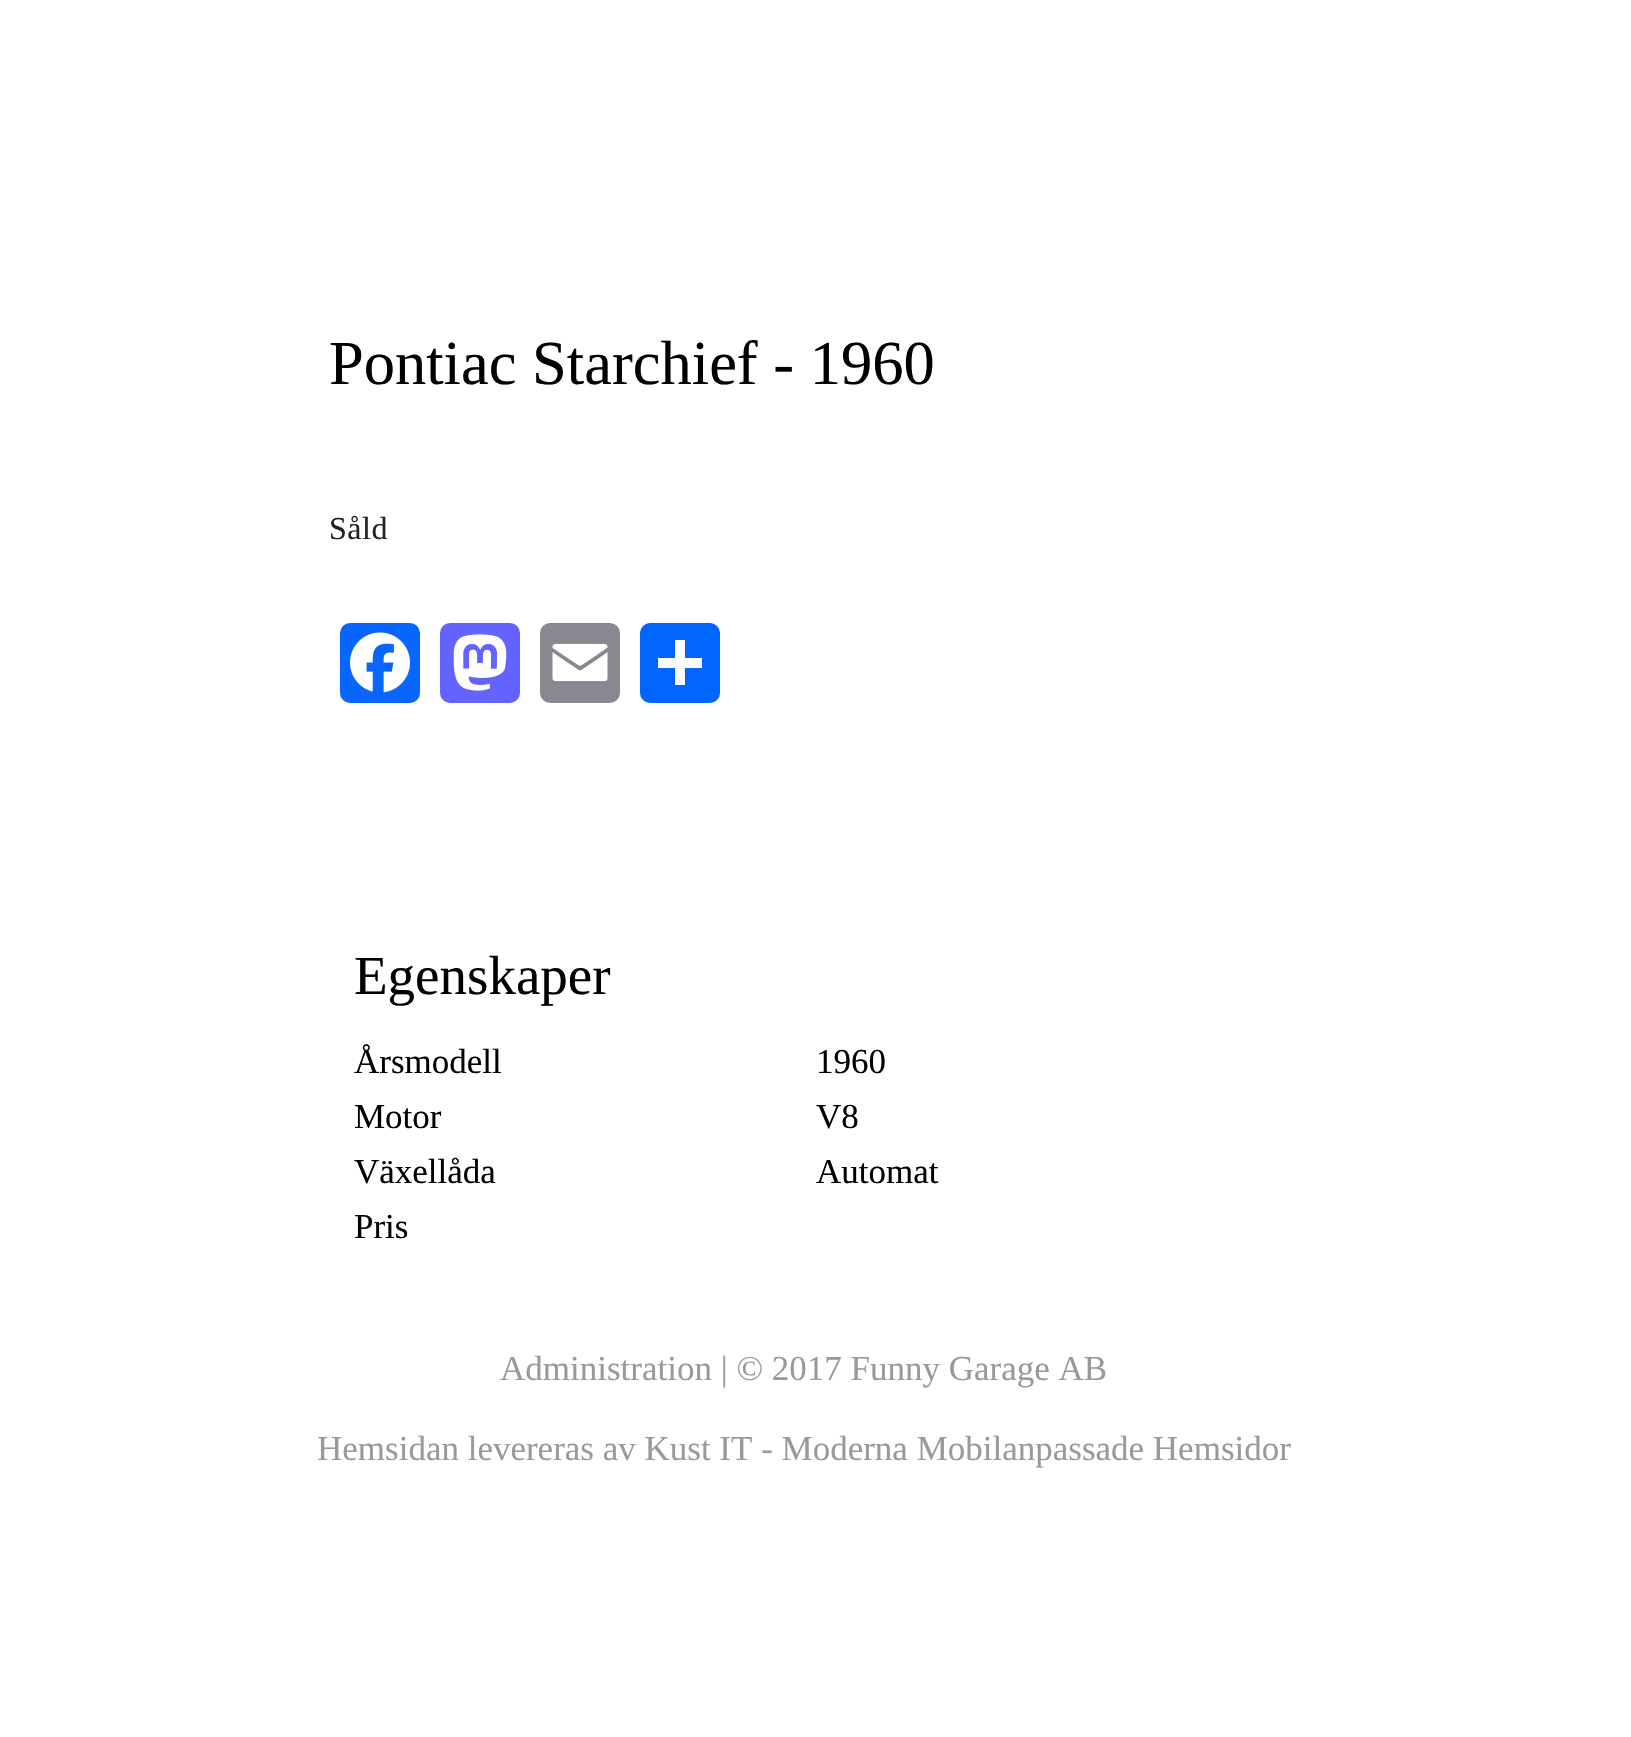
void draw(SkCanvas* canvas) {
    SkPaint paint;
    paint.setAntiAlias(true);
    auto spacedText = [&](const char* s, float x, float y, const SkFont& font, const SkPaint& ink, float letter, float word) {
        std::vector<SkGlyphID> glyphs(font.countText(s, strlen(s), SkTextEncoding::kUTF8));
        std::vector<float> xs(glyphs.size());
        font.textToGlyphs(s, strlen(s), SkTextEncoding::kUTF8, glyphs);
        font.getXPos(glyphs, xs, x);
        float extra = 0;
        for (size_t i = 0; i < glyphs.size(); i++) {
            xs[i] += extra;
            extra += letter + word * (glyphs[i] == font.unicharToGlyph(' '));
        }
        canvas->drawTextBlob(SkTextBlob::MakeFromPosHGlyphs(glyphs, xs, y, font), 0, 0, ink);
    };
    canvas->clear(0xFFFFFFFF);
    SkFont font1(fontMgr->matchFamilyStyle("Liberation Serif", SkFontStyle::Normal()), 62.5f);
    font1.setSubpixel(true);
    paint.setColor(0xFF000000);
    canvas->drawString("Pontiac Starchief - 1960", 329, 384, font1, paint);
    SkFont font2(fontMgr->matchFamilyStyle("Liberation Serif", SkFontStyle::Normal()), 32);
    font2.setSubpixel(true);
    paint.setColor(0xFF222222);
    spacedText("Såld", 329, 539, font2, paint, 0.5f, 0);
    paint.setColor(0xFF0866FF);
    canvas->drawRoundRect(SkRect::MakeXYWH(340, 623, 80, 80), 10, 10, paint);
    canvas->drawImageRect(SkImages::DeferredFromEncodedData(SkData::MakeFromFileName("img1.png")), SkRect::MakeXYWH(350, 632, 60, 61), SkSamplingOptions());
    paint.setColor(0xFF6364FF);
    canvas->drawRoundRect(SkRect::MakeXYWH(440, 623, 80, 80), 10, 10, paint);
    canvas->drawImageRect(SkImages::DeferredFromEncodedData(SkData::MakeFromFileName("img2.png")), SkRect::MakeXYWH(453, 634, 54, 57), SkSamplingOptions());
    paint.setColor(0xFF888990);
    canvas->drawRoundRect(SkRect::MakeXYWH(540, 623, 80, 80), 10, 10, paint);
    canvas->drawImageRect(SkImages::DeferredFromEncodedData(SkData::MakeFromFileName("img3.png")), SkRect::MakeXYWH(552, 643, 56, 39), SkSamplingOptions());
    paint.setColor(0xFF0166FF);
    canvas->drawRoundRect(SkRect::MakeXYWH(640, 623, 80, 80), 10, 10, paint);
    paint.setColor(0xFFFFFFFF);
    canvas->drawRect(SkRect::MakeXYWH(675, 640, 10, 45), paint);
    canvas->drawRect(SkRect::MakeXYWH(658, 658, 44, 10), paint);
    SkFont font3(fontMgr->matchFamilyStyle("Liberation Serif", SkFontStyle::Normal()), 55);
    font3.setSubpixel(true);
    paint.setColor(0xFF000000);
    canvas->drawString("Egenskaper", 354, 994, font3, paint);
    SkFont font4(fontMgr->matchFamilyStyle("Liberation Serif", SkFontStyle::Normal()), 35);
    font4.setSubpixel(true);
    canvas->drawString("Årsmodell", 354, 1073, font4, paint);
    canvas->drawString("1960", 816, 1073, font4, paint);
    canvas->drawString("Motor", 354, 1128, font4, paint);
    canvas->drawString("V8", 816, 1128, font4, paint);
    canvas->drawString("Växellåda", 354, 1183, font4, paint);
    canvas->drawString("Automat", 816, 1183, font4, paint);
    canvas->drawString("Pris", 354, 1238, font4, paint);
    paint.setColor(0xFF999999);
    canvas->drawString("Administration | © 2017 Funny Garage AB", 500, 1380, font4, paint);
    canvas->drawString("Hemsidan levereras av Kust IT - Moderna Mobilanpassade Hemsidor", 317, 1460, font4, paint);
}
